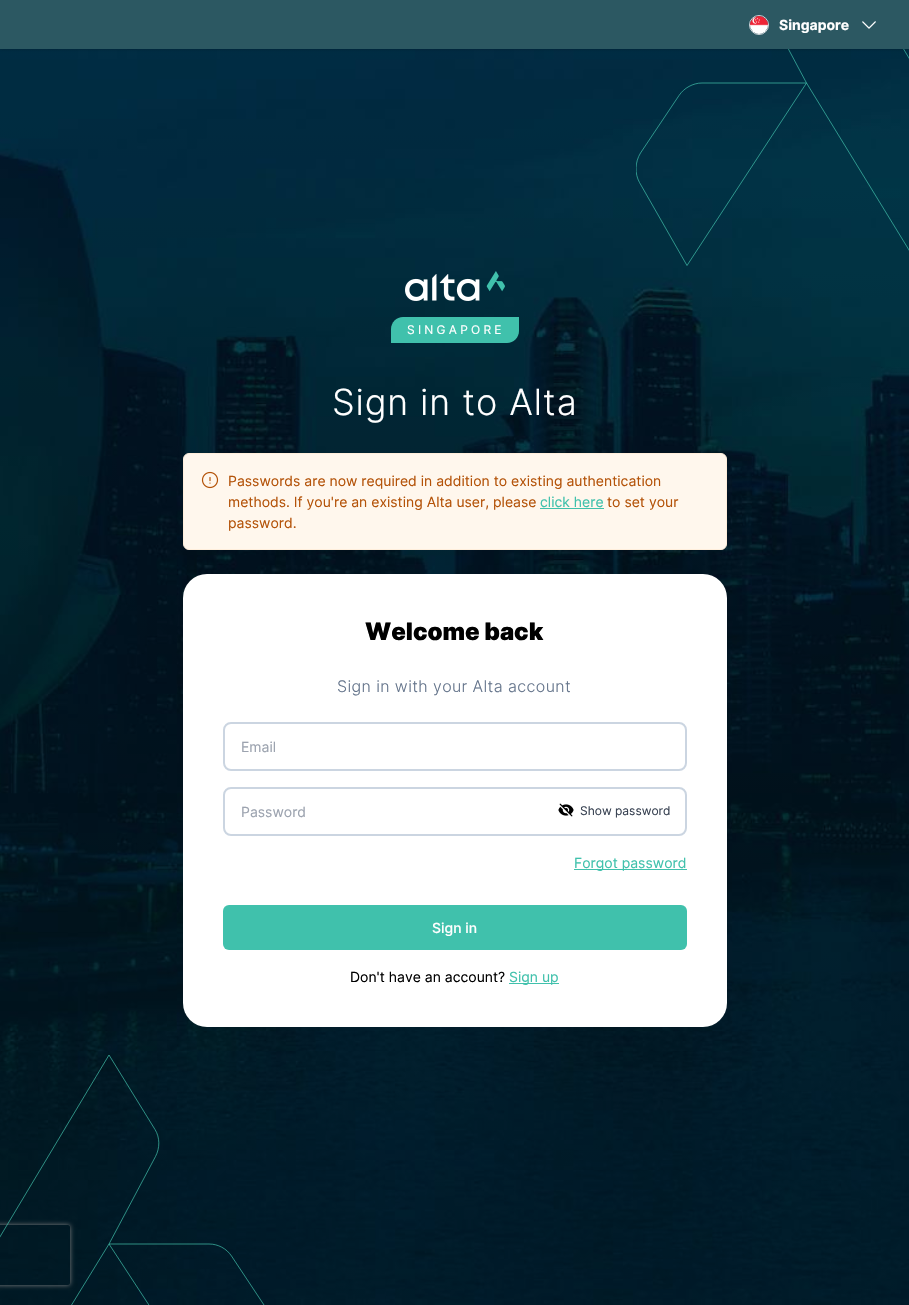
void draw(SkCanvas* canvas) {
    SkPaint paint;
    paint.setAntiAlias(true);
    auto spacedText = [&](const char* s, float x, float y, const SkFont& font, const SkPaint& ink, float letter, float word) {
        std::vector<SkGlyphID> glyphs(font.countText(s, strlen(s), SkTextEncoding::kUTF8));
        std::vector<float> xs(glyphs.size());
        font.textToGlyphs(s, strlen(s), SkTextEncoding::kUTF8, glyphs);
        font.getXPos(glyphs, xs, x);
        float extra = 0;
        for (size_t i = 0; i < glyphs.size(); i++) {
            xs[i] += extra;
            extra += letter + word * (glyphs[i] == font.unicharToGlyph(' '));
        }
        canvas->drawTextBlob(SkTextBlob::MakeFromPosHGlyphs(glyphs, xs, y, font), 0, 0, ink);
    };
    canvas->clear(0xFFFFFFFF);
    canvas->drawImageRect(SkImages::DeferredFromEncodedData(SkData::MakeFromFileName("img3.png")), SkRect::MakeXYWH(0, 49, 909, 1256), SkSamplingOptions());
    canvas->save();
    canvas->clipRect(SkRect::MakeXYWH(636, 0, 273, 266));
    paint.setStyle(SkPaint::kStroke_Style);
    paint.setStrokeWidth(0.7f);
    paint.setColor(0xFF40C1AC);
    canvas->drawPath(SkPathBuilder().moveTo(806.5f, 83).lineTo(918.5f, 265.5f).lineTo(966.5f, 181.5f).cubicTo(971.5f, 173, 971.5f, 162, 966, 153.5f).lineTo(806.5f, -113.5f).lineTo(758.5f, -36).cubicTo(753.5f, -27.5f, 753, -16.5f, 758, -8).close().moveTo(806.5f, 83).lineTo(687, 265.5f).lineTo(639.5f, 182.5f).cubicTo(634.5f, 173.5f, 635, 162, 640.5f, 153).lineTo(679, 95.5f).cubicTo(684, 88, 693, 83, 702, 83).close().detach(), paint);
    canvas->restore();
    paint.setStyle(SkPaint::kFill_Style);
    paint.setColor(0x1A000000);
    paint.setMaskFilter(SkMaskFilter::MakeBlur(kNormal_SkBlurStyle, 1));
    canvas->drawRect(SkRect::MakeXYWH(1, 2, 907, 47), paint);
    paint.setMaskFilter(nullptr);
    paint.setMaskFilter(SkMaskFilter::MakeBlur(kNormal_SkBlurStyle, 1.5f));
    canvas->drawRect(SkRect::MakeXYWH(0, 1, 909, 49), paint);
    paint.setMaskFilter(nullptr);
    paint.setColor(0xFF2C5862);
    canvas->drawRect(SkRect::MakeXYWH(0, 0, 909, 49), paint);
    paint.setStyle(SkPaint::kStroke_Style);
    paint.setStrokeWidth(1);
    paint.setColor(0xFFD1D5DB);
    canvas->drawCircle(759, 25, 9.5f, paint);
    canvas->drawImageRect(SkImages::DeferredFromEncodedData(SkData::MakeFromFileName("img1.png")), SkRect::MakeXYWH(750, 16, 18, 18), SkSamplingOptions());
    SkFont font1(fontMgr->matchFamilyStyle("Inter", SkFontStyle::Bold()), 14);
    font1.setSubpixel(true);
    paint.setStyle(SkPaint::kFill_Style);
    paint.setColor(0xFFFFFFFF);
    canvas->drawString("Singapore", 779, 30, font1, paint);
    canvas->drawImageRect(SkImages::DeferredFromEncodedData(SkData::MakeFromFileName("img2.png")), SkRect::MakeXYWH(862, 21, 14, 8), SkSamplingOptions());
    canvas->drawImageRect(SkImages::DeferredFromEncodedData(SkData::MakeFromFileName("img4.png")), SkRect::MakeXYWH(405, 271, 100, 30), SkSamplingOptions());
    paint.setColor(0xFF40C1AC);
    canvas->drawPath(SkPathBuilder().moveTo(403, 317).lineTo(519, 317).lineTo(519, 331).cubicTo(519, 337.5f, 513.5f, 343, 507, 343).lineTo(391, 343).lineTo(391, 329).cubicTo(391, 322.5f, 396.5f, 317, 403, 317).close().detach(), paint);
    SkFont font2(fontMgr->matchFamilyStyle("Inter", SkFontStyle::Normal()), 12);
    font2.setSubpixel(true);
    paint.setColor(0xFFFFFFFF);
    spacedText("SINGAPORE", 407, 334, font2, paint, 3.25f, 0);
    SkFont font3(fontMgr->matchFamilyStyle("Inter", SkFontStyle(300, SkFontStyle::kNormal_Width, SkFontStyle::kUpright_Slant)), 36);
    font3.setSubpixel(true);
    spacedText("Sign in to Alta", 332, 415, font3, paint, 0.9f, 0);
    paint.setColor(0xFFFFF7ED);
    canvas->drawRoundRect(SkRect::MakeXYWH(183.5f, 453.5f, 543, 96), 5.5f, 5.5f, paint);
    paint.setStyle(SkPaint::kStroke_Style);
    paint.setColor(0xFFFFEEDB);
    canvas->drawRoundRect(SkRect::MakeXYWH(183.5f, 453.5f, 543, 96), 5.5f, 5.5f, paint);
    canvas->drawImageRect(SkImages::DeferredFromEncodedData(SkData::MakeFromFileName("img5.png")), SkRect::MakeXYWH(201, 471, 18, 18), SkSamplingOptions());
    SkFont font4(fontMgr->matchFamilyStyle("Inter", SkFontStyle::Normal()), 14);
    font4.setSubpixel(true);
    paint.setStyle(SkPaint::kFill_Style);
    paint.setColor(0xFFB45309);
    canvas->drawString("Passwords are now required in addition to existing authentication", 228, 486, font4, paint);
    canvas->drawString("methods. If you're an existing Alta user, please", 228, 507, font4, paint);
    paint.setColor(0xFF40C1AC);
    canvas->drawString("click here", 540, 507, font4, paint);
    canvas->drawRect(SkRect::MakeXYWH(540, 508, 64, 1), paint);
    paint.setColor(0xFFB45309);
    canvas->drawString("to set your", 607, 507, font4, paint);
    canvas->drawString("password.", 228, 528, font4, paint);
    paint.setColor(0xFFFFFFFF);
    canvas->drawRoundRect(SkRect::MakeXYWH(183, 574, 544, 453), 24, 24, paint);
    SkFont font5(fontMgr->matchFamilyStyle("Inter", SkFontStyle(900, SkFontStyle::kNormal_Width, SkFontStyle::kUpright_Slant)), 24);
    font5.setSubpixel(true);
    paint.setColor(0xFF000000);
    canvas->drawString("Welcome back", 365, 640, font5, paint);
    SkFont font6(fontMgr->matchFamilyStyle("Inter", SkFontStyle(300, SkFontStyle::kNormal_Width, SkFontStyle::kUpright_Slant)), 16);
    font6.setSubpixel(true);
    paint.setColor(0xFF64748B);
    spacedText("Sign in with your Alta account", 337, 692, font6, paint, 0.4f, 0);
    paint.setStyle(SkPaint::kStroke_Style);
    paint.setStrokeWidth(2);
    paint.setColor(0xFFCBD5E1);
    canvas->drawRoundRect(SkRect::MakeXYWH(224, 723, 462, 47), 7, 7, paint);
    paint.setStyle(SkPaint::kFill_Style);
    paint.setColor(0xFF9CA3AF);
    canvas->drawString("Email", 241, 752, font4, paint);
    paint.setStyle(SkPaint::kStroke_Style);
    paint.setColor(0xFFCBD5E1);
    canvas->drawRoundRect(SkRect::MakeXYWH(224, 788, 462, 47), 7, 7, paint);
    paint.setStyle(SkPaint::kFill_Style);
    paint.setColor(0xFF9CA3AF);
    canvas->drawString("Password", 241, 817, font4, paint);
    canvas->drawImageRect(SkImages::DeferredFromEncodedData(SkData::MakeFromFileName("img6.png")), SkRect::MakeXYWH(558, 803, 16, 14), SkSamplingOptions());
    paint.setColor(0xFF374151);
    canvas->drawString("Show password", 580, 815, font2, paint);
    paint.setColor(0xFF40C1AC);
    canvas->drawRect(SkRect::MakeXYWH(574, 869, 113, 1), paint);
    canvas->drawString("Forgot password", 574, 868, font4, paint);
    canvas->drawRoundRect(SkRect::MakeXYWH(223, 905, 464, 45), 6, 6, paint);
    SkFont font7(fontMgr->matchFamilyStyle("Inter", SkFontStyle(500, SkFontStyle::kNormal_Width, SkFontStyle::kUpright_Slant)), 14);
    font7.setSubpixel(true);
    paint.setColor(0xFFFFFFFF);
    canvas->drawString("Sign in", 432, 933, font7, paint);
    paint.setColor(0xFF000000);
    canvas->drawString("Don't have an account?", 350, 982, font4, paint);
    paint.setColor(0xFF40C1AC);
    canvas->drawRect(SkRect::MakeXYWH(509, 983, 50, 1), paint);
    canvas->drawString("Sign up", 509, 982, font4, paint);
    canvas->save();
    canvas->clipPath(SkPathBuilder(SkPathFillType::kEvenOdd).moveTo(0, 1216).lineTo(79, 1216).lineTo(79, 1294).lineTo(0, 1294).close().moveTo(-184, 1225).lineTo(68, 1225).cubicTo(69, 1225, 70, 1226, 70, 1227).lineTo(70, 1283).cubicTo(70, 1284, 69, 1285, 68, 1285).lineTo(-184, 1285).cubicTo(-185, 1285, -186, 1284, -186, 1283).lineTo(-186, 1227).cubicTo(-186, 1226, -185, 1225, -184, 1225).close().detach(), true);
    paint.setColor(0xFF808080);
    paint.setMaskFilter(SkMaskFilter::MakeBlur(kNormal_SkBlurStyle, 2.5f));
    canvas->drawRoundRect(SkRect::MakeXYWH(-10, 1225, 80, 60), 2, 2, paint);
    paint.setMaskFilter(nullptr);
    canvas->restore();
    paint.setStyle(SkPaint::kStroke_Style);
    paint.setStrokeWidth(0.7f);
    paint.setColor(0xFF40C1AC);
    canvas->drawPath(SkPathBuilder().moveTo(109, 1244).lineTo(1.5f, 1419).lineTo(-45, 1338.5f).cubicTo(-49.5f, 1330, -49.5f, 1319.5f, -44.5f, 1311).lineTo(109, 1055).lineTo(155, 1129.5f).cubicTo(160, 1137.5f, 160, 1148, 155.5f, 1156.5f).close().moveTo(109, 1244).lineTo(223.5f, 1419).lineTo(269, 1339).cubicTo(274, 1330, 274, 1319.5f, 268, 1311).lineTo(231.5f, 1256).cubicTo(226.5f, 1248.5f, 218, 1244, 209, 1244).close().detach(), paint);
}
